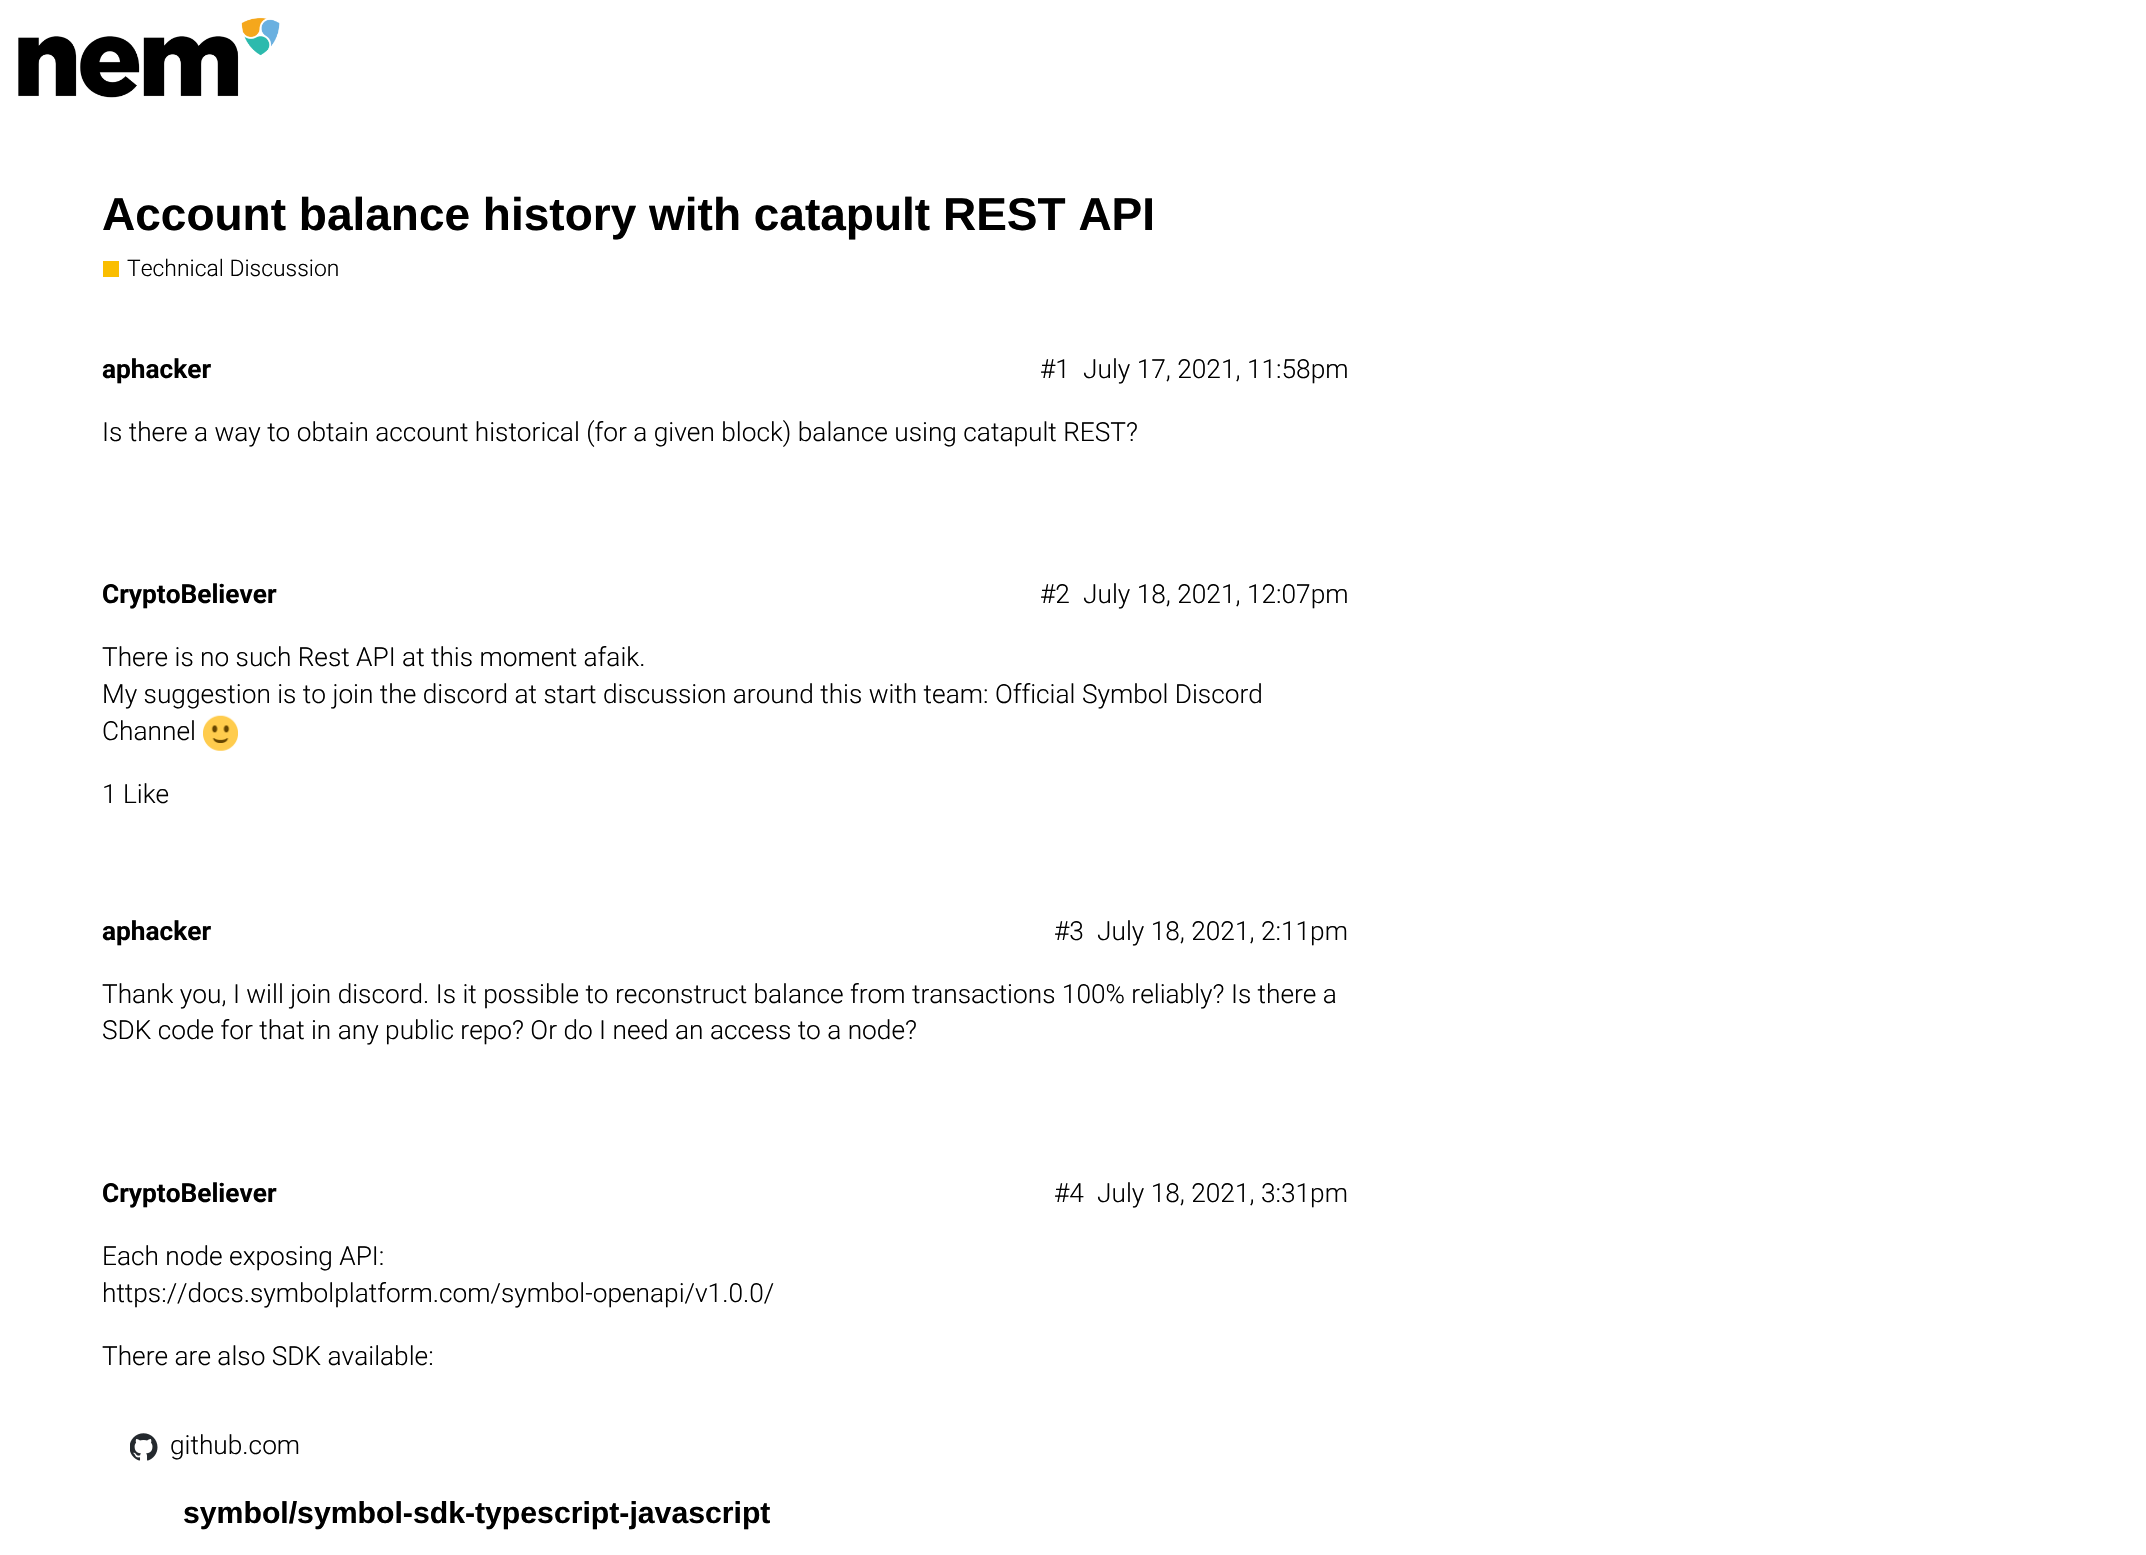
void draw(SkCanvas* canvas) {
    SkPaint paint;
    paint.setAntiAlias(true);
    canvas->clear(0xFFFFFFFF);
    canvas->drawImageRect(SkImages::DeferredFromEncodedData(SkData::MakeFromFileName("img1.png")), SkRect::MakeXYWH(18, 17, 262, 81), SkSamplingOptions());
    SkFont font1(fontMgr->matchFamilyStyle("Liberation Sans", SkFontStyle::Bold()), 46);
    font1.setSubpixel(true);
    paint.setColor(0xFF000000);
    canvas->drawString("Account balance history with catapult REST API", 102, 230, font1, paint);
    paint.setColor(0xFFFABE00);
    canvas->drawRect(SkRect::MakeXYWH(103, 261, 16, 16), paint);
    SkFont font2(fontMgr->matchFamilyStyle("Roboto", SkFontStyle(300, SkFontStyle::kNormal_Width, SkFontStyle::kUpright_Slant)), 22.9f);
    font2.setSubpixel(true);
    paint.setColor(0xFF000000);
    canvas->drawString("Technical Discussion", 127, 276, font2, paint);
    SkFont font3(fontMgr->matchFamilyStyle("Roboto", SkFontStyle::Bold()), 26.25f);
    font3.setSubpixel(true);
    canvas->drawString("aphacker", 102, 378, font3, paint);
    SkFont font4(fontMgr->matchFamilyStyle("Roboto", SkFontStyle(300, SkFontStyle::kNormal_Width, SkFontStyle::kUpright_Slant)), 26.25f);
    font4.setSubpixel(true);
    canvas->drawString("#1", 1040, 378, font4, paint);
    canvas->drawString("July 17, 2021, 11:58pm", 1083, 378, font4, paint);
    canvas->drawString("Is there a way to obtain account historical (for a given block) balance using catapult REST?", 102, 441, font4, paint);
    canvas->drawString("CryptoBeliever", 102, 603, font3, paint);
    canvas->drawString("#2", 1040, 603, font4, paint);
    canvas->drawString("July 18, 2021, 12:07pm", 1083, 603, font4, paint);
    canvas->drawString("There is no such Rest API at this moment afaik.", 102, 666, font4, paint);
    canvas->drawString("My suggestion is to join the discord at start discussion around this with team:", 102, 703, font4, paint);
    canvas->drawString("Official Symbol Discord", 995, 703, font4, paint);
    canvas->drawString("Channel", 102, 740, font4, paint);
    canvas->drawImageRect(SkImages::DeferredFromEncodedData(SkData::MakeFromFileName("img2.png")), SkRect::MakeXYWH(203, 715, 35, 36), SkSamplingOptions());
    canvas->drawString("1 Like", 102, 803, font4, paint);
    canvas->drawString("aphacker", 102, 940, font3, paint);
    canvas->drawString("#3", 1054, 940, font4, paint);
    canvas->drawString("July 18, 2021, 2:11pm", 1097, 940, font4, paint);
    canvas->drawString("Thank you, I will join discord. Is it possible to reconstruct balance from transactions 100% reliably? Is there a", 102, 1003, font4, paint);
    canvas->drawString("SDK code for that in any public repo? Or do I need an access to a node?", 102, 1039, font4, paint);
    canvas->drawString("CryptoBeliever", 102, 1202, font3, paint);
    canvas->drawString("#4", 1054, 1202, font4, paint);
    canvas->drawString("July 18, 2021, 3:31pm", 1097, 1202, font4, paint);
    canvas->drawString("Each node exposing API:", 102, 1265, font4, paint);
    canvas->drawString("https://docs.symbolplatform.com/symbol-openapi/v1.0.0/", 102, 1302, font4, paint);
    canvas->drawString("There are also SDK available:", 102, 1365, font4, paint);
    canvas->drawImageRect(SkImages::DeferredFromEncodedData(SkData::MakeFromFileName("img3.png")), SkRect::MakeXYWH(130, 1433, 28, 28), SkSamplingOptions());
    canvas->drawString("github.com", 170, 1454, font4, paint);
    SkFont font5(fontMgr->matchFamilyStyle("Liberation Sans", SkFontStyle::Bold()), 30.2f);
    font5.setSubpixel(true);
    canvas->drawString("symbol/symbol-sdk-typescript-javascript", 183, 1523, font5, paint);
}
